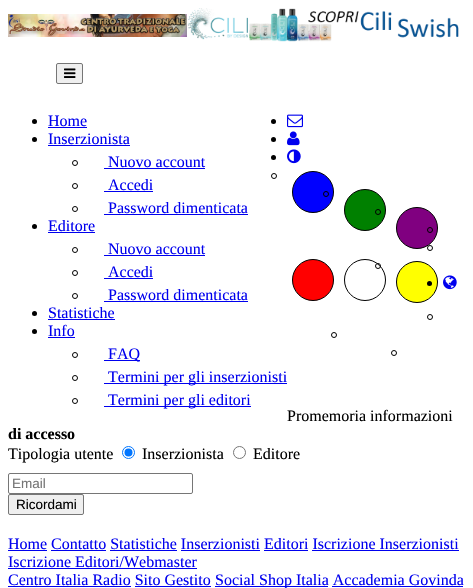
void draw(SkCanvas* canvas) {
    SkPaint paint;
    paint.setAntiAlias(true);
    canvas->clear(0xFFFFFFFF);
    canvas->drawImageRect(SkImages::DeferredFromEncodedData(SkData::MakeFromFileName("img1.png")), SkRect::MakeXYWH(8, 14, 179, 23), SkSamplingOptions());
    canvas->drawImageRect(SkImages::DeferredFromEncodedData(SkData::MakeFromFileName("img2.png")), SkRect::MakeXYWH(187, 8, 272, 34), SkSamplingOptions());
    paint.setColor(0xFFEFEFEF);
    canvas->drawRoundRect(SkRect::MakeXYWH(56.5f, 63.5f, 26, 20), 1.5f, 1.5f, paint);
    paint.setStyle(SkPaint::kStroke_Style);
    paint.setStrokeWidth(1);
    paint.setColor(0xFF767676);
    canvas->drawRoundRect(SkRect::MakeXYWH(56.5f, 63.5f, 26, 20), 1.5f, 1.5f, paint);
    canvas->drawImageRect(SkImages::DeferredFromEncodedData(SkData::MakeFromFileName("img3.png")), SkRect::MakeXYWH(64, 68, 12, 10), SkSamplingOptions());
    paint.setStyle(SkPaint::kFill_Style);
    paint.setColor(0xFF000000);
    canvas->drawCircle(34.5f, 121.5f, 2.5f, paint);
    SkFont font1(fontMgr->matchFamilyStyle("Liberation Serif", SkFontStyle::Normal()), 16);
    font1.setSubpixel(true);
    paint.setColor(0xFF0000EE);
    canvas->drawString("Home", 48, 126, font1, paint);
    canvas->drawRect(SkRect::MakeXYWH(48, 127, 39, 1), paint);
    paint.setColor(0xFF000000);
    canvas->drawCircle(34.5f, 139.5f, 2.5f, paint);
    paint.setColor(0xFF0000EE);
    canvas->drawString("Inserzionista", 48, 144, font1, paint);
    canvas->drawRect(SkRect::MakeXYWH(48, 145, 82, 1), paint);
    paint.setStyle(SkPaint::kStroke_Style);
    paint.setColor(0xFF000000);
    canvas->drawCircle(75, 163, 2.5f, paint);
    paint.setStyle(SkPaint::kFill_Style);
    paint.setColor(0xFF0000EE);
    canvas->drawString("Nuovo account", 108, 167, font1, paint);
    canvas->drawRect(SkRect::MakeXYWH(104, 168, 101, 1), paint);
    paint.setStyle(SkPaint::kStroke_Style);
    paint.setColor(0xFF000000);
    canvas->drawCircle(75, 186, 2.5f, paint);
    paint.setStyle(SkPaint::kFill_Style);
    paint.setColor(0xFF0000EE);
    canvas->drawString("Accedi", 108, 190, font1, paint);
    canvas->drawRect(SkRect::MakeXYWH(104, 191, 49, 1), paint);
    paint.setStyle(SkPaint::kStroke_Style);
    paint.setColor(0xFF000000);
    canvas->drawCircle(75, 209, 2.5f, paint);
    paint.setStyle(SkPaint::kFill_Style);
    paint.setColor(0xFF0000EE);
    canvas->drawString("Password dimenticata", 108, 213, font1, paint);
    canvas->drawRect(SkRect::MakeXYWH(104, 214, 144, 1), paint);
    paint.setColor(0xFF000000);
    canvas->drawCircle(34.5f, 226.5f, 2.5f, paint);
    paint.setColor(0xFF0000EE);
    canvas->drawString("Editore", 48, 231, font1, paint);
    canvas->drawRect(SkRect::MakeXYWH(48, 232, 47, 1), paint);
    paint.setStyle(SkPaint::kStroke_Style);
    paint.setColor(0xFF000000);
    canvas->drawCircle(75, 250, 2.5f, paint);
    paint.setStyle(SkPaint::kFill_Style);
    paint.setColor(0xFF0000EE);
    canvas->drawString("Nuovo account", 108, 254, font1, paint);
    canvas->drawRect(SkRect::MakeXYWH(104, 255, 101, 1), paint);
    paint.setStyle(SkPaint::kStroke_Style);
    paint.setColor(0xFF000000);
    canvas->drawCircle(75, 273, 2.5f, paint);
    paint.setStyle(SkPaint::kFill_Style);
    paint.setColor(0xFF0000EE);
    canvas->drawString("Accedi", 108, 277, font1, paint);
    canvas->drawRect(SkRect::MakeXYWH(104, 278, 49, 1), paint);
    paint.setStyle(SkPaint::kStroke_Style);
    paint.setColor(0xFF000000);
    canvas->drawCircle(75, 296, 2.5f, paint);
    paint.setStyle(SkPaint::kFill_Style);
    paint.setColor(0xFF0000EE);
    canvas->drawString("Password dimenticata", 108, 300, font1, paint);
    canvas->drawRect(SkRect::MakeXYWH(104, 301, 144, 1), paint);
    paint.setColor(0xFF000000);
    canvas->drawCircle(34.5f, 313.5f, 2.5f, paint);
    paint.setColor(0xFF0000EE);
    canvas->drawString("Statistiche", 48, 318, font1, paint);
    canvas->drawRect(SkRect::MakeXYWH(48, 319, 67, 1), paint);
    paint.setColor(0xFF000000);
    canvas->drawCircle(34.5f, 331.5f, 2.5f, paint);
    paint.setColor(0xFF0000EE);
    canvas->drawString("Info", 48, 336, font1, paint);
    canvas->drawRect(SkRect::MakeXYWH(48, 337, 27, 1), paint);
    paint.setStyle(SkPaint::kStroke_Style);
    paint.setColor(0xFF000000);
    canvas->drawCircle(75, 355, 2.5f, paint);
    paint.setStyle(SkPaint::kFill_Style);
    paint.setColor(0xFF0000EE);
    canvas->drawRect(SkRect::MakeXYWH(104, 360, 36, 1), paint);
    canvas->drawString("FAQ", 108, 359, font1, paint);
    paint.setStyle(SkPaint::kStroke_Style);
    paint.setColor(0xFF000000);
    canvas->drawCircle(75, 378, 2.5f, paint);
    paint.setStyle(SkPaint::kFill_Style);
    paint.setColor(0xFF0000EE);
    canvas->drawRect(SkRect::MakeXYWH(104, 383, 183, 1), paint);
    canvas->drawString("Termini per gli inserzionisti", 108, 382, font1, paint);
    paint.setStyle(SkPaint::kStroke_Style);
    paint.setColor(0xFF000000);
    canvas->drawCircle(75, 401, 2.5f, paint);
    paint.setStyle(SkPaint::kFill_Style);
    paint.setColor(0xFF0000EE);
    canvas->drawRect(SkRect::MakeXYWH(104, 406, 147, 1), paint);
    canvas->drawString("Termini per gli editori", 108, 405, font1, paint);
    paint.setColor(0xFF000000);
    canvas->drawCircle(273.5f, 121.5f, 2.5f, paint);
    canvas->drawImageRect(SkImages::DeferredFromEncodedData(SkData::MakeFromFileName("img4.png")), SkRect::MakeXYWH(287, 114, 16, 14), SkSamplingOptions());
    canvas->drawCircle(273.5f, 139.5f, 2.5f, paint);
    canvas->drawImageRect(SkImages::DeferredFromEncodedData(SkData::MakeFromFileName("img5.png")), SkRect::MakeXYWH(287, 131, 13, 15), SkSamplingOptions());
    canvas->drawCircle(273.5f, 157.5f, 2.5f, paint);
    canvas->drawImageRect(SkImages::DeferredFromEncodedData(SkData::MakeFromFileName("img6.png")), SkRect::MakeXYWH(287, 149, 14, 15), SkSamplingOptions());
    paint.setStyle(SkPaint::kStroke_Style);
    canvas->drawCircle(274, 176, 2.5f, paint);
    paint.setStyle(SkPaint::kFill_Style);
    paint.setColor(0xFF0000FF);
    canvas->drawCircle(313, 192, 20.5f, paint);
    paint.setStyle(SkPaint::kStroke_Style);
    paint.setColor(0xFF000000);
    canvas->drawCircle(313, 192, 20.5f, paint);
    canvas->drawCircle(326, 194, 2.5f, paint);
    paint.setStyle(SkPaint::kFill_Style);
    paint.setColor(0xFF008000);
    canvas->drawCircle(365, 210, 20.5f, paint);
    paint.setStyle(SkPaint::kStroke_Style);
    paint.setColor(0xFF000000);
    canvas->drawCircle(365, 210, 20.5f, paint);
    canvas->drawCircle(378, 212, 2.5f, paint);
    paint.setStyle(SkPaint::kFill_Style);
    paint.setColor(0xFF800080);
    canvas->drawCircle(417, 228, 20.5f, paint);
    paint.setStyle(SkPaint::kStroke_Style);
    paint.setColor(0xFF000000);
    canvas->drawCircle(417, 228, 20.5f, paint);
    canvas->drawCircle(430, 230, 2.5f, paint);
    paint.setStyle(SkPaint::kFill_Style);
    paint.setColor(0xFFFF0000);
    canvas->drawCircle(313, 280, 20.5f, paint);
    paint.setStyle(SkPaint::kStroke_Style);
    paint.setColor(0xFF000000);
    canvas->drawCircle(313, 280, 20.5f, paint);
    canvas->drawCircle(430, 248, 2.5f, paint);
    canvas->drawCircle(365, 280, 20.5f, paint);
    canvas->drawCircle(378, 266, 2.5f, paint);
    paint.setStyle(SkPaint::kFill_Style);
    paint.setColor(0xFFFFFF00);
    canvas->drawCircle(417, 282, 20.5f, paint);
    paint.setStyle(SkPaint::kStroke_Style);
    paint.setColor(0xFF000000);
    canvas->drawCircle(417, 282, 20.5f, paint);
    paint.setStyle(SkPaint::kFill_Style);
    canvas->drawCircle(429.5f, 283.5f, 2.5f, paint);
    canvas->drawImageRect(SkImages::DeferredFromEncodedData(SkData::MakeFromFileName("img7.png")), SkRect::MakeXYWH(443, 275, 14, 15), SkSamplingOptions());
    paint.setStyle(SkPaint::kStroke_Style);
    canvas->drawCircle(430, 317, 2.5f, paint);
    canvas->drawCircle(334, 335, 2.5f, paint);
    canvas->drawCircle(394, 353, 2.5f, paint);
    paint.setStyle(SkPaint::kFill_Style);
    canvas->drawString("Promemoria informazioni", 287, 421, font1, paint);
    SkFont font2(fontMgr->matchFamilyStyle("Liberation Serif", SkFontStyle::Bold()), 16);
    font2.setSubpixel(true);
    canvas->drawString("di accesso", 8, 439, font2, paint);
    canvas->drawString("Tipologia utente", 8, 459, font1, paint);
    paint.setStyle(SkPaint::kStroke_Style);
    paint.setColor(0xFF0075FF);
    canvas->drawCircle(128.5f, 452.5f, 6, paint);
    paint.setStyle(SkPaint::kFill_Style);
    canvas->drawCircle(128.5f, 452.5f, 4, paint);
    paint.setColor(0xFF000000);
    canvas->drawString("Inserzionista", 142, 459, font1, paint);
    paint.setStyle(SkPaint::kStroke_Style);
    paint.setColor(0xFF767676);
    canvas->drawCircle(239.5f, 452.5f, 6, paint);
    paint.setStyle(SkPaint::kFill_Style);
    paint.setColor(0xFF000000);
    canvas->drawString("Editore", 253, 459, font1, paint);
    paint.setStyle(SkPaint::kStroke_Style);
    paint.setColor(0xFF767676);
    canvas->drawRoundRect(SkRect::MakeXYWH(8.5f, 473.5f, 184, 20), 1.5f, 1.5f, paint);
    SkFont font3(fontMgr->matchFamilyStyle("Liberation Sans", SkFontStyle::Normal()), 13.5f);
    font3.setSubpixel(true);
    paint.setStyle(SkPaint::kFill_Style);
    paint.setColor(0xFF757575);
    canvas->drawString("Email", 12, 488, font3, paint);
    paint.setColor(0xFFEFEFEF);
    canvas->drawRoundRect(SkRect::MakeXYWH(8.5f, 494.5f, 75, 20), 1.5f, 1.5f, paint);
    paint.setStyle(SkPaint::kStroke_Style);
    paint.setColor(0xFF767676);
    canvas->drawRoundRect(SkRect::MakeXYWH(8.5f, 494.5f, 75, 20), 1.5f, 1.5f, paint);
    paint.setStyle(SkPaint::kFill_Style);
    paint.setColor(0xFF000000);
    canvas->drawString("Ricordami", 16, 509, font3, paint);
    paint.setColor(0xFF0000EE);
    canvas->drawString("Home Contatto Statistiche Inserzionisti Editori Iscrizione Inserzionisti", 8, 549, font1, paint);
    canvas->drawRect(SkRect::MakeXYWH(8, 550, 39, 1), paint);
    canvas->drawRect(SkRect::MakeXYWH(51, 550, 55, 1), paint);
    canvas->drawRect(SkRect::MakeXYWH(110, 550, 67, 1), paint);
    canvas->drawRect(SkRect::MakeXYWH(181, 550, 79, 1), paint);
    canvas->drawRect(SkRect::MakeXYWH(264, 550, 44, 1), paint);
    canvas->drawRect(SkRect::MakeXYWH(312, 550, 147, 1), paint);
    canvas->drawString("Iscrizione Editori/Webmaster", 8, 567, font1, paint);
    canvas->drawRect(SkRect::MakeXYWH(8, 568, 189, 1), paint);
    canvas->drawString("Centro Italia Radio Sito Gestito", 8, 585, font1, paint);
    canvas->drawRect(SkRect::MakeXYWH(8, 586, 123, 1), paint);
    canvas->drawRect(SkRect::MakeXYWH(215, 586, 113, 1), paint);
    canvas->drawString("Social Shop Italia Accademia Govinda", 215, 585, font1, paint);
    canvas->drawRect(SkRect::MakeXYWH(135, 586, 76, 1), paint);
    canvas->drawRect(SkRect::MakeXYWH(332, 586, 131, 1), paint);
}
